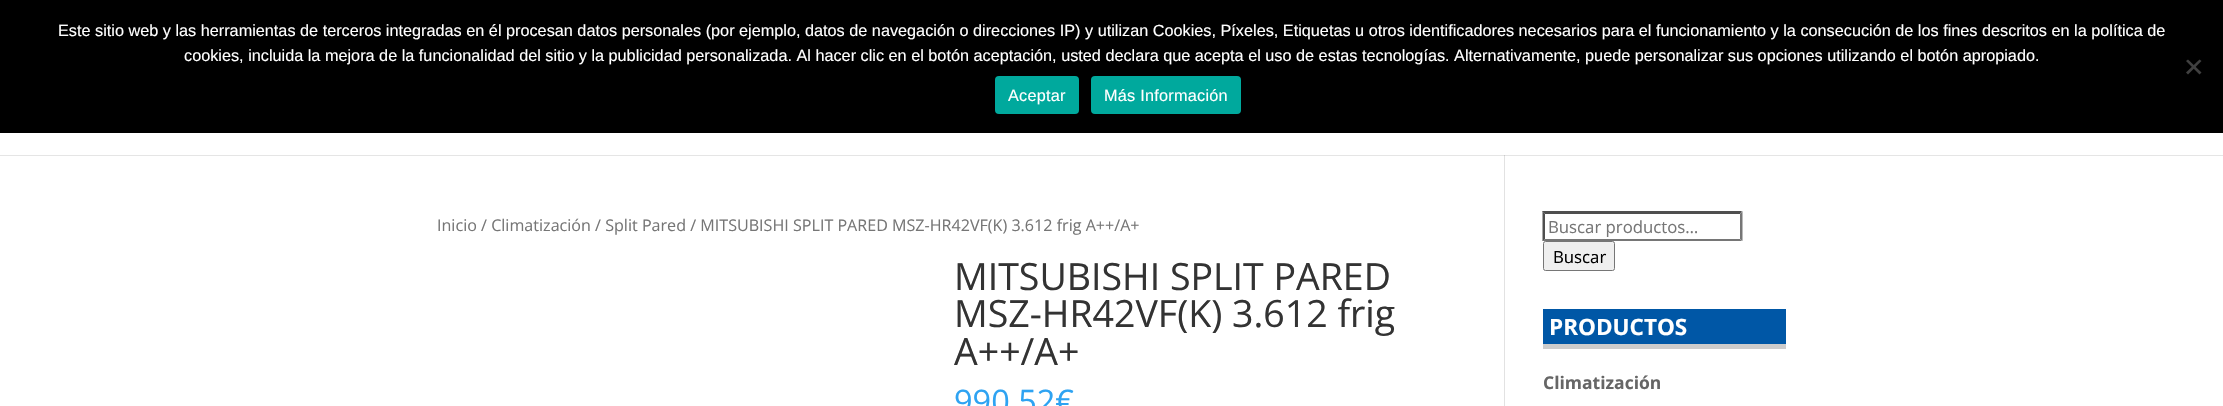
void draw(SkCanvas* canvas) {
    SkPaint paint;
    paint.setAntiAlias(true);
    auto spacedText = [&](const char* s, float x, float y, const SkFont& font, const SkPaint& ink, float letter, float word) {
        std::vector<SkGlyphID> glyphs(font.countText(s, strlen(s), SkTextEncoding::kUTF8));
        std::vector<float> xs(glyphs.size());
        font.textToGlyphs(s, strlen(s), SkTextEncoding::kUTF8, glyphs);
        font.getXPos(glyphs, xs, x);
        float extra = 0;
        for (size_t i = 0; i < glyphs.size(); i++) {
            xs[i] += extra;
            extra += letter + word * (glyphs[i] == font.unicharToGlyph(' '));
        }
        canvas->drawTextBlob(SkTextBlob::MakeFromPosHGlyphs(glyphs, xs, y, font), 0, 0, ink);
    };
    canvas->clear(0xFFFFFFFF);
    paint.setColor(0xFF000000);
    canvas->drawRect(SkRect::MakeXYWH(0, 0, 2223, 133), paint);
    SkFont font1(fontMgr->matchFamilyStyle("Liberation Sans", SkFontStyle::Normal()), 16.25f);
    font1.setSubpixel(true);
    paint.setColor(0xFFFFFFFF);
    canvas->drawString("Este sitio web y las herramientas de terceros integradas en él procesan datos personales (por ejemplo, datos de navegación o direcciones IP) y utilizan Cookies, Píxeles, Etiquetas u otros identificadores necesarios para el funcionamiento y la consecución de los fines descritos en la política de", 58, 36, font1, paint);
    canvas->drawString("cookies, incluida la mejora de la funcionalidad del sitio y la publicidad personalizada. Al hacer clic en el botón aceptación, usted declara que acepta el uso de estas tecnologías. Alternativamente, puede personalizar sus opciones utilizando el botón apropiado.", 184, 61, font1, paint);
    paint.setColor(0xFF404040);
    canvas->drawPath(SkPathBuilder().moveTo(2199.5f, 59.5f).lineTo(2201.5f, 61).lineTo(2188, 74.5f).lineTo(2186, 72.5f).close().detach(), paint);
    canvas->drawPath(SkPathBuilder().moveTo(2186, 61).lineTo(2188, 59.5f).lineTo(2201.5f, 72.5f).lineTo(2199.5f, 74.5f).close().detach(), paint);
    paint.setColor(0xFF00A99D);
    canvas->drawRoundRect(SkRect::MakeXYWH(995, 76, 84, 38), 4, 4, paint);
    paint.setColor(0xFFFFFFFF);
    spacedText("Aceptar", 1008, 101, font1, paint, 0.25f, 0);
    paint.setColor(0xFF00A99D);
    canvas->drawRoundRect(SkRect::MakeXYWH(1091, 76, 150, 38), 4, 4, paint);
    paint.setColor(0xFFFFFFFF);
    spacedText("Más Información", 1104, 101, font1, paint, 0.25f, 0);
    paint.setColor(0xFFE2E2E2);
    canvas->drawRect(SkRect::MakeXYWH(1504, 155, 1, 251), paint);
    paint.setColor(0x1A000000);
    canvas->drawPath(SkPathBuilder().moveTo(0, 155).lineTo(0, 156).lineTo(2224, 156).lineTo(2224, 39).lineTo(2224, 155).close().detach(), paint);
    SkFont font2(fontMgr->matchFamilyStyle("Open Sans", SkFontStyle::Normal()), 16.1f);
    font2.setSubpixel(true);
    paint.setColor(0xFF767676);
    canvas->drawString("Inicio / Climatización / Split Pared / MITSUBISHI SPLIT PARED MSZ-HR42VF(K) 3.612 frig A++/A+", 437, 231, font2, paint);
    SkFont font3(fontMgr->matchFamilyStyle("Open Sans", SkFontStyle::Normal()), 37.5f);
    font3.setSubpixel(true);
    paint.setColor(0xFF333333);
    canvas->drawString("MITSUBISHI SPLIT PARED", 954, 290, font3, paint);
    canvas->drawString("MSZ-HR42VF(K) 3.612 frig", 954, 327, font3, paint);
    canvas->drawString("A++/A+", 954, 365, font3, paint);
    SkFont font4(fontMgr->matchFamilyStyle("Open Sans", SkFontStyle::Normal()), 32.5f);
    font4.setSubpixel(true);
    paint.setColor(0xFF2EA3F2);
    canvas->drawString("990,52€", 954, 413, font4, paint);
    paint.setColor(0xFF4F4F4F);
    canvas->drawPath(SkPathBuilder().moveTo(1542, 211).lineTo(1742, 211).lineTo(1740, 214).lineTo(1545, 214).close().detach(), paint);
    paint.setColor(0xFF767676);
    canvas->drawPath(SkPathBuilder().moveTo(1742.5f, 211).lineTo(1742.5f, 241).lineTo(1740, 239).lineTo(1740, 214).close().detach(), paint);
    canvas->drawPath(SkPathBuilder().moveTo(1742, 241).lineTo(1542, 241).lineTo(1545, 239).lineTo(1740, 239).close().detach(), paint);
    paint.setColor(0xFF4F4F4F);
    canvas->drawPath(SkPathBuilder().moveTo(1542.5f, 241).lineTo(1542.5f, 211).lineTo(1545, 214).lineTo(1545, 239).close().detach(), paint);
    SkFont font5(fontMgr->matchFamilyStyle("Open Sans", SkFontStyle::Normal()), 16.75f);
    font5.setSubpixel(true);
    paint.setColor(0xFF767676);
    canvas->drawString("Buscar productos…", 1548, 233, font5, paint);
    paint.setColor(0xFFEFEFEF);
    canvas->drawRoundRect(SkRect::MakeXYWH(1543.5f, 241.5f, 71, 29), 2, 2, paint);
    paint.setStyle(SkPaint::kStroke_Style);
    paint.setStrokeWidth(1);
    paint.setColor(0xFF767676);
    canvas->drawRoundRect(SkRect::MakeXYWH(1543.5f, 241.5f, 71, 29), 2, 2, paint);
    paint.setStyle(SkPaint::kFill_Style);
    paint.setColor(0xFF000000);
    canvas->drawString("Buscar", 1553, 263, font5, paint);
    paint.setColor(0xFF0057A6);
    canvas->drawRect(SkRect::MakeXYWH(1543, 309, 243, 35), paint);
    paint.setColor(0xFFCCCCCC);
    canvas->drawRect(SkRect::MakeXYWH(1543, 344, 243, 5), paint);
    SkFont font6(fontMgr->matchFamilyStyle("Open Sans", SkFontStyle::Bold()), 22.5f);
    font6.setSubpixel(true);
    paint.setColor(0xFFFFFFFF);
    canvas->drawString("PRODUCTOS", 1549, 335, font6, paint);
    SkFont font7(fontMgr->matchFamilyStyle("Open Sans", SkFontStyle::Bold()), 17.5f);
    font7.setSubpixel(true);
    paint.setColor(0xFF666666);
    canvas->drawString("Climatización", 1543, 389, font7, paint);
}
